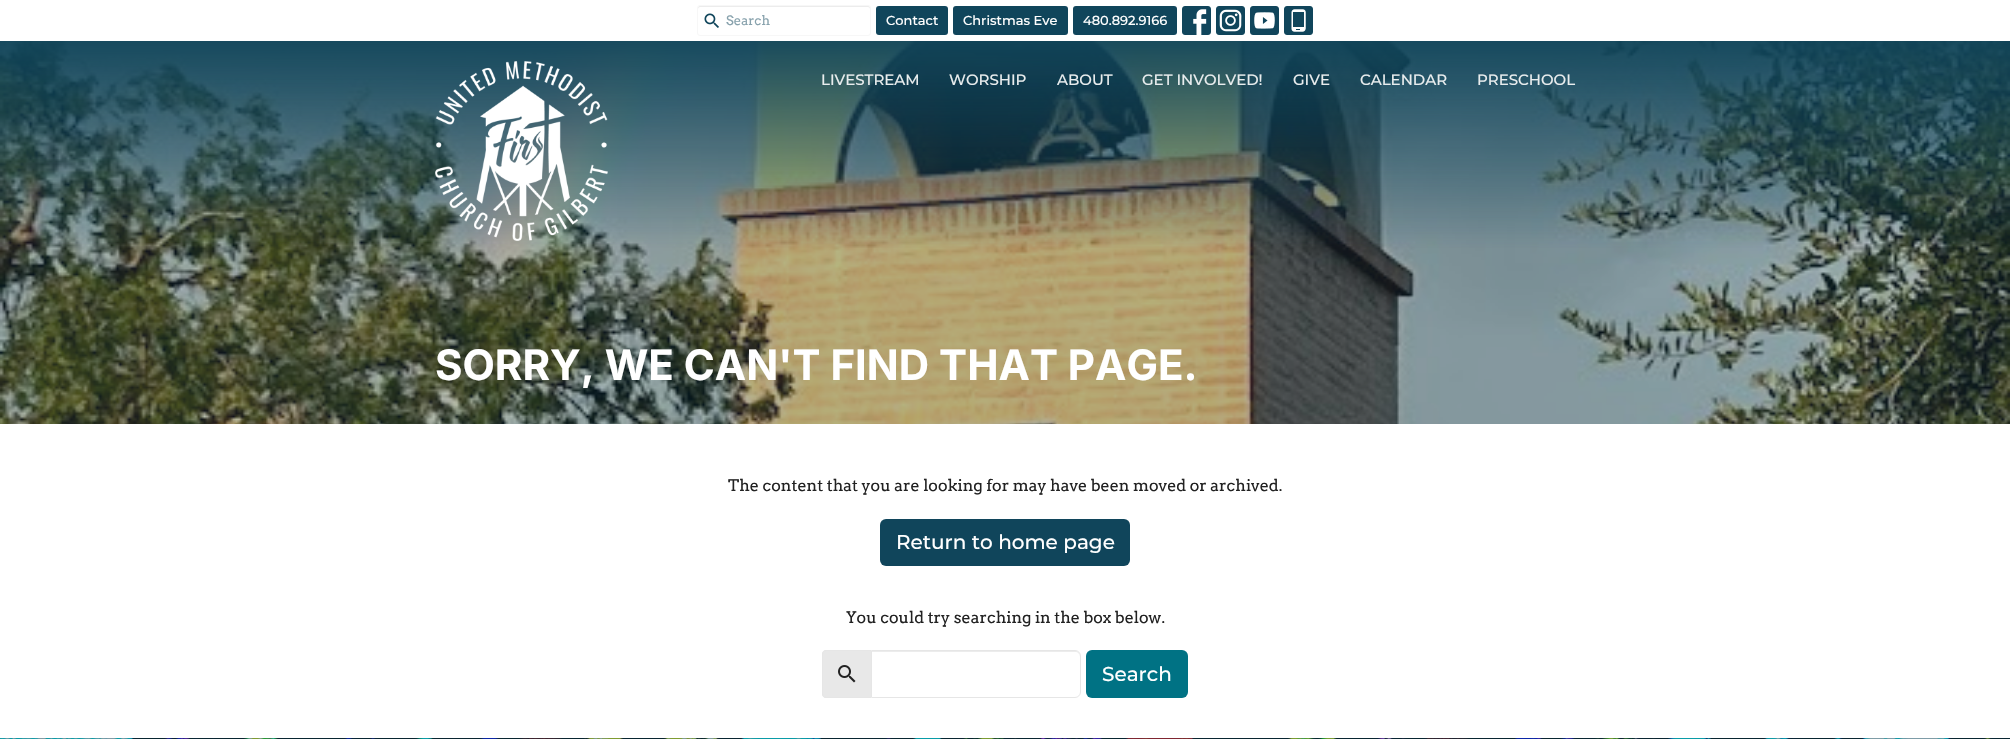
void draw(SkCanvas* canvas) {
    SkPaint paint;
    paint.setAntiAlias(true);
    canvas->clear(0xFFFFFFFF);
    paint.setColor(0xFFECECEC);
    canvas->drawPath(SkPathBuilder().moveTo(700, 7).lineTo(868, 7).cubicTo(869, 7, 870, 8, 870, 9).cubicTo(870, 8, 870, 6, 868, 6).lineTo(699, 6).cubicTo(698, 7, 698, 8, 698, 9).cubicTo(698, 8, 699, 7, 700, 7).close().detach(), paint);
    paint.setStyle(SkPaint::kStroke_Style);
    paint.setStrokeWidth(1);
    paint.setColor(0xFFF7F7F7);
    canvas->drawRoundRect(SkRect::MakeXYWH(697.5f, 5.5f, 173, 30), 2.5f, 2.5f, paint);
    canvas->drawImageRect(SkImages::DeferredFromEncodedData(SkData::MakeFromFileName("img1.png")), SkRect::MakeXYWH(704, 13, 15, 15), SkSamplingOptions());
    SkFont font1(fontMgr->matchFamilyStyle("Arvo", SkFontStyle::Normal()), 13);
    font1.setSubpixel(true);
    paint.setStyle(SkPaint::kFill_Style);
    paint.setColor(0xFF88A2AD);
    canvas->drawString("Search", 726, 25, font1, paint);
    paint.setColor(0xFF10455B);
    canvas->drawRoundRect(SkRect::MakeXYWH(876, 6, 72, 29), 3, 3, paint);
    SkFont font2(fontMgr->matchFamilyStyle("Montserrat", SkFontStyle(500, SkFontStyle::kNormal_Width, SkFontStyle::kUpright_Slant)), 13);
    font2.setSubpixel(true);
    paint.setColor(0xFFFFFFFF);
    canvas->drawString("Contact", 886, 25, font2, paint);
    paint.setColor(0xFF10455B);
    canvas->drawRoundRect(SkRect::MakeXYWH(953, 6, 115, 29), 3, 3, paint);
    paint.setColor(0xFFFFFFFF);
    canvas->drawString("Christmas Eve", 963, 25, font2, paint);
    paint.setColor(0xFF10455B);
    canvas->drawRoundRect(SkRect::MakeXYWH(1073, 6, 104, 29), 3, 3, paint);
    paint.setColor(0xFFFFFFFF);
    canvas->drawString("480.892.9166", 1083, 25, font2, paint);
    canvas->drawImageRect(SkImages::DeferredFromEncodedData(SkData::MakeFromFileName("img2.png")), SkRect::MakeXYWH(1182, 6, 29, 29), SkSamplingOptions());
    canvas->drawImageRect(SkImages::DeferredFromEncodedData(SkData::MakeFromFileName("img3.png")), SkRect::MakeXYWH(1216, 6, 29, 29), SkSamplingOptions());
    canvas->drawImageRect(SkImages::DeferredFromEncodedData(SkData::MakeFromFileName("img4.png")), SkRect::MakeXYWH(1250, 6, 29, 29), SkSamplingOptions());
    canvas->drawImageRect(SkImages::DeferredFromEncodedData(SkData::MakeFromFileName("img5.png")), SkRect::MakeXYWH(1284, 6, 29, 29), SkSamplingOptions());
    canvas->drawImageRect(SkImages::DeferredFromEncodedData(SkData::MakeFromFileName("img7.png")), SkRect::MakeXYWH(0, 41, 2010, 383), SkSamplingOptions());
    canvas->drawImageRect(SkImages::DeferredFromEncodedData(SkData::MakeFromFileName("img6.png")), SkRect::MakeXYWH(435, 61, 173, 180), SkSamplingOptions());
    SkFont font3(fontMgr->matchFamilyStyle("Montserrat", SkFontStyle(500, SkFontStyle::kNormal_Width, SkFontStyle::kUpright_Slant)), 15);
    font3.setSubpixel(true);
    paint.setColor(0xFFE9EDEE);
    canvas->drawString("LIVESTREAM", 821, 85, font3, paint);
    canvas->drawString("WORSHIP", 949, 85, font3, paint);
    canvas->drawString("ABOUT", 1057, 85, font3, paint);
    canvas->drawString("GET INVOLVED!", 1142, 85, font3, paint);
    canvas->drawString("GIVE", 1293, 85, font3, paint);
    canvas->drawString("CALENDAR", 1360, 85, font3, paint);
    canvas->drawString("PRESCHOOL", 1477, 85, font3, paint);
    SkFont font4(fontMgr->matchFamilyStyle("Inter", SkFontStyle::Bold()), 42);
    font4.setSubpixel(true);
    paint.setColor(0xFFFFFFFF);
    canvas->drawString("SORRY, WE CAN'T FIND THAT PAGE.", 435, 380, font4, paint);
    SkFont font5(fontMgr->matchFamilyStyle("Arvo", SkFontStyle::Normal()), 16);
    font5.setSubpixel(true);
    paint.setColor(0xFF222222);
    canvas->drawString("The content that you are looking for may have been moved or archived.", 728, 491, font5, paint);
    paint.setColor(0xFF10455B);
    canvas->drawRoundRect(SkRect::MakeXYWH(880, 519, 250, 47), 6, 6, paint);
    SkFont font6(fontMgr->matchFamilyStyle("Montserrat", SkFontStyle(500, SkFontStyle::kNormal_Width, SkFontStyle::kUpright_Slant)), 20);
    font6.setSubpixel(true);
    paint.setColor(0xFFFFFFFF);
    canvas->drawString("Return to home page", 896, 549, font6, paint);
    paint.setColor(0xFF222222);
    canvas->drawString("You could try searching in the box below.", 846, 623, font5, paint);
    paint.setColor(0xFFE8E8E8);
    canvas->drawPath(SkPathBuilder().moveTo(826, 650).lineTo(871, 650).lineTo(871, 698).lineTo(826, 698).cubicTo(824, 698, 822, 696, 822, 694).lineTo(822, 654).cubicTo(822, 652, 824, 650, 826, 650).close().detach(), paint);
    paint.setColor(0xFFE6E6E6);
    canvas->drawPath(SkPathBuilder(SkPathFillType::kEvenOdd).moveTo(826, 650).lineTo(871, 650).lineTo(871, 698).lineTo(826, 698).cubicTo(824, 698, 822, 696, 822, 694).lineTo(822, 654).cubicTo(822, 652, 824, 650, 826, 650).close().moveTo(826, 651).lineTo(871, 651).lineTo(871, 697).lineTo(826, 697).cubicTo(824, 697, 823, 696, 823, 694).lineTo(823, 654).cubicTo(823, 652, 824, 651, 826, 651).close().detach(), paint);
    canvas->drawImageRect(SkImages::DeferredFromEncodedData(SkData::MakeFromFileName("img8.png")), SkRect::MakeXYWH(838, 665, 18, 18), SkSamplingOptions());
    paint.setColor(0xFFECECEC);
    canvas->drawPath(SkPathBuilder().moveTo(872, 652).lineTo(1075, 652).cubicTo(1078, 652, 1080, 654, 1080, 657).cubicTo(1080, 654, 1079, 652, 1076, 651).lineTo(872, 651).close().detach(), paint);
    paint.setStyle(SkPaint::kStroke_Style);
    paint.setColor(0xFFE6E6E6);
    canvas->drawPath(SkPathBuilder().moveTo(871.5f, 650.5f).lineTo(1075, 650.5f).cubicTo(1078, 650.5f, 1080.5f, 653, 1080.5f, 656).lineTo(1080.5f, 692).cubicTo(1080.5f, 695, 1078, 697.5f, 1075, 697.5f).lineTo(871.5f, 697.5f).close().detach(), paint);
    paint.setStyle(SkPaint::kFill_Style);
    paint.setColor(0xFF007284);
    canvas->drawRoundRect(SkRect::MakeXYWH(1086, 650, 102, 48), 6, 6, paint);
    paint.setColor(0xFFFFFFFF);
    canvas->drawString("Search", 1102, 681, font6, paint);
    canvas->drawImageRect(SkImages::DeferredFromEncodedData(SkData::MakeFromFileName("img9.png")), SkRect::MakeXYWH(0, 738, 2010, 1), SkSamplingOptions());
}
